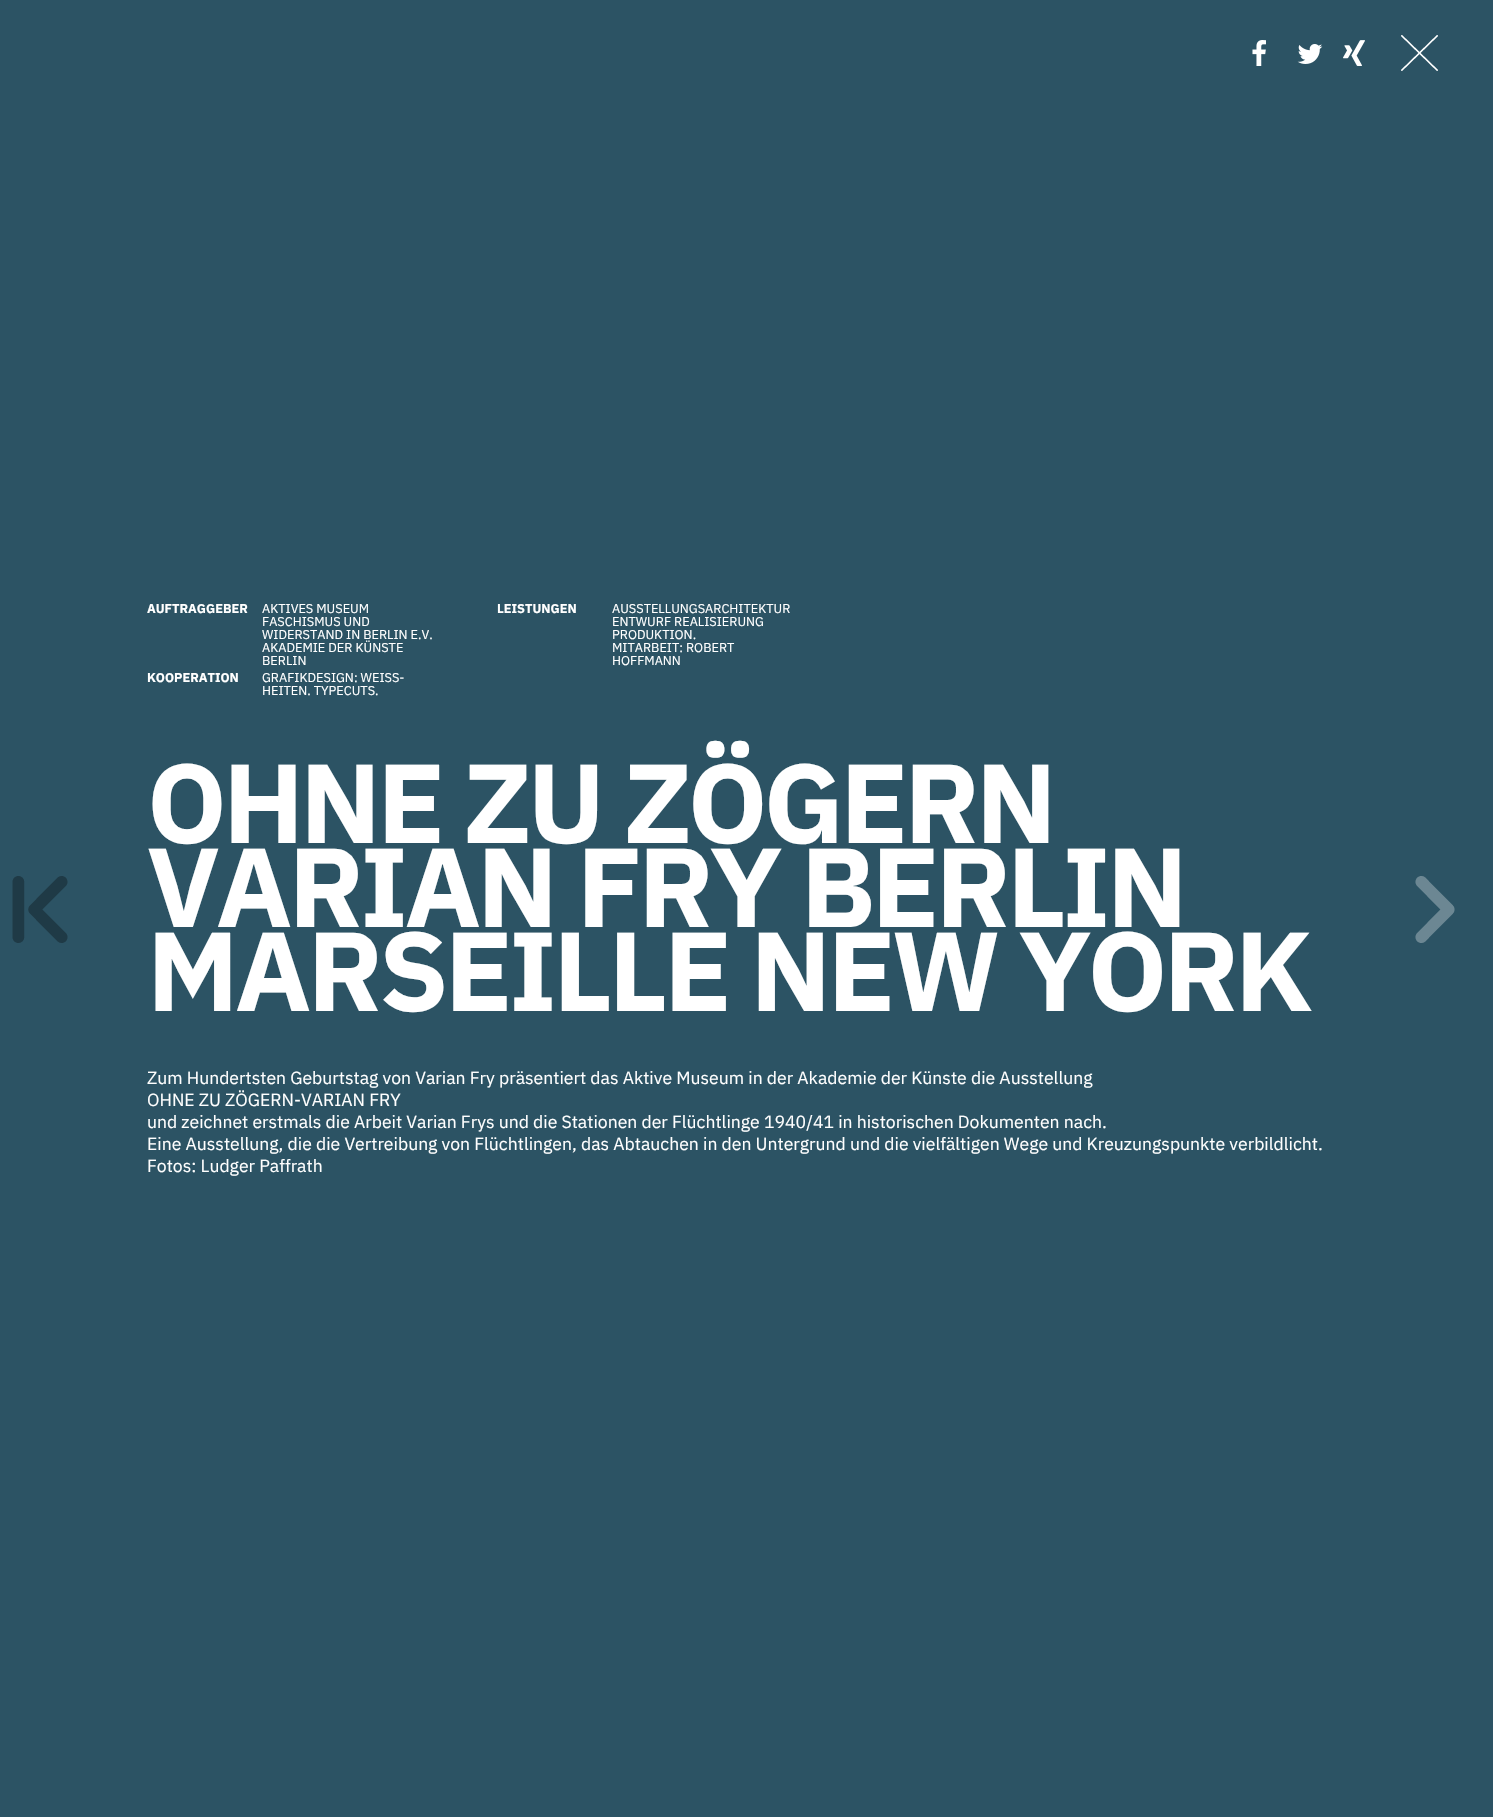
void draw(SkCanvas* canvas) {
    SkPaint paint;
    paint.setAntiAlias(true);
    auto spacedText = [&](const char* s, float x, float y, const SkFont& font, const SkPaint& ink, float letter, float word) {
        std::vector<SkGlyphID> glyphs(font.countText(s, strlen(s), SkTextEncoding::kUTF8));
        std::vector<float> xs(glyphs.size());
        font.textToGlyphs(s, strlen(s), SkTextEncoding::kUTF8, glyphs);
        font.getXPos(glyphs, xs, x);
        float extra = 0;
        for (size_t i = 0; i < glyphs.size(); i++) {
            xs[i] += extra;
            extra += letter + word * (glyphs[i] == font.unicharToGlyph(' '));
        }
        canvas->drawTextBlob(SkTextBlob::MakeFromPosHGlyphs(glyphs, xs, y, font), 0, 0, ink);
    };
    canvas->clear(0xFF2C5364);
    canvas->drawImageRect(SkImages::DeferredFromEncodedData(SkData::MakeFromFileName("img1.png")), SkRect::MakeXYWH(12, 876, 56, 67), SkSamplingOptions());
    canvas->drawImageRect(SkImages::DeferredFromEncodedData(SkData::MakeFromFileName("img2.png")), SkRect::MakeXYWH(1252, 40, 14, 26), SkSamplingOptions());
    canvas->drawImageRect(SkImages::DeferredFromEncodedData(SkData::MakeFromFileName("img3.png")), SkRect::MakeXYWH(1297, 44, 26, 20), SkSamplingOptions());
    canvas->drawImageRect(SkImages::DeferredFromEncodedData(SkData::MakeFromFileName("img4.png")), SkRect::MakeXYWH(1343, 40, 22, 26), SkSamplingOptions());
    canvas->drawImageRect(SkImages::DeferredFromEncodedData(SkData::MakeFromFileName("img5.png")), SkRect::MakeXYWH(1401, 35, 37, 36), SkSamplingOptions());
    SkFont font1(fontMgr->matchFamilyStyle("IBM Plex Sans", SkFontStyle::Bold()), 12.75f);
    font1.setSubpixel(true);
    paint.setColor(0xFFFFFFFF);
    canvas->drawString("AUFTRAGGEBER", 147, 613, font1, paint);
    SkFont font2(fontMgr->matchFamilyStyle("IBM Plex Sans", SkFontStyle::Normal()), 12.75f);
    font2.setSubpixel(true);
    canvas->drawString("AKTIVES MUSEUM", 262, 613, font2, paint);
    canvas->drawString("FASCHISMUS UND", 262, 626, font2, paint);
    canvas->drawString("WIDERSTAND IN BERLIN E.V.", 262, 639, font2, paint);
    canvas->drawString("AKADEMIE DER KÜNSTE", 262, 652, font2, paint);
    canvas->drawString("BERLIN", 262, 665, font2, paint);
    canvas->drawString("KOOPERATION", 147, 682, font1, paint);
    canvas->drawString("GRAFIKDESIGN: WEISS-", 262, 682, font2, paint);
    canvas->drawString("HEITEN. TYPECUTS.", 262, 695, font2, paint);
    canvas->drawString("LEISTUNGEN", 497, 613, font1, paint);
    canvas->drawString("AUSSTELLUNGSARCHITEKTUR", 612, 613, font2, paint);
    canvas->drawString("ENTWURF REALISIERUNG", 612, 626, font2, paint);
    canvas->drawString("PRODUKTION.", 612, 639, font2, paint);
    canvas->drawString("MITARBEIT: ROBERT", 612, 652, font2, paint);
    canvas->drawString("HOFFMANN", 612, 665, font2, paint);
    SkFont font3(fontMgr->matchFamilyStyle("IBM Plex Sans", SkFontStyle::Bold()), 112);
    font3.setSubpixel(true);
    spacedText("OHNE ZU ZÖGERN", 147, 843, font3, paint, -4, 0);
    spacedText("VARIAN FRY BERLIN", 147, 927, font3, paint, -4, 0);
    spacedText("MARSEILLE NEW YORK", 147, 1011, font3, paint, -4, 0);
    SkFont font4(fontMgr->matchFamilyStyle("IBM Plex Sans", SkFontStyle::Normal()), 17.6f);
    font4.setSubpixel(true);
    canvas->drawString("Zum Hundertsten Geburtstag von Varian Fry präsentiert das Aktive Museum in der Akademie der Künste die Ausstellung", 147, 1084, font4, paint);
    canvas->drawString("OHNE ZU ZÖGERN-VARIAN FRY", 147, 1106, font4, paint);
    canvas->drawString("und zeichnet erstmals die Arbeit Varian Frys und die Stationen der Flüchtlinge 1940/41 in historischen Dokumenten nach.", 147, 1128, font4, paint);
    canvas->drawString("Eine Ausstellung, die die Vertreibung von Flüchtlingen, das Abtauchen in den Untergrund und die vielfältigen Wege und Kreuzungspunkte verbildlicht.", 147, 1150, font4, paint);
    canvas->drawString("Fotos: Ludger Paffrath", 147, 1172, font4, paint);
    canvas->drawImageRect(SkImages::DeferredFromEncodedData(SkData::MakeFromFileName("img6.png")), SkRect::MakeXYWH(1415, 876, 40, 67), SkSamplingOptions());
}
